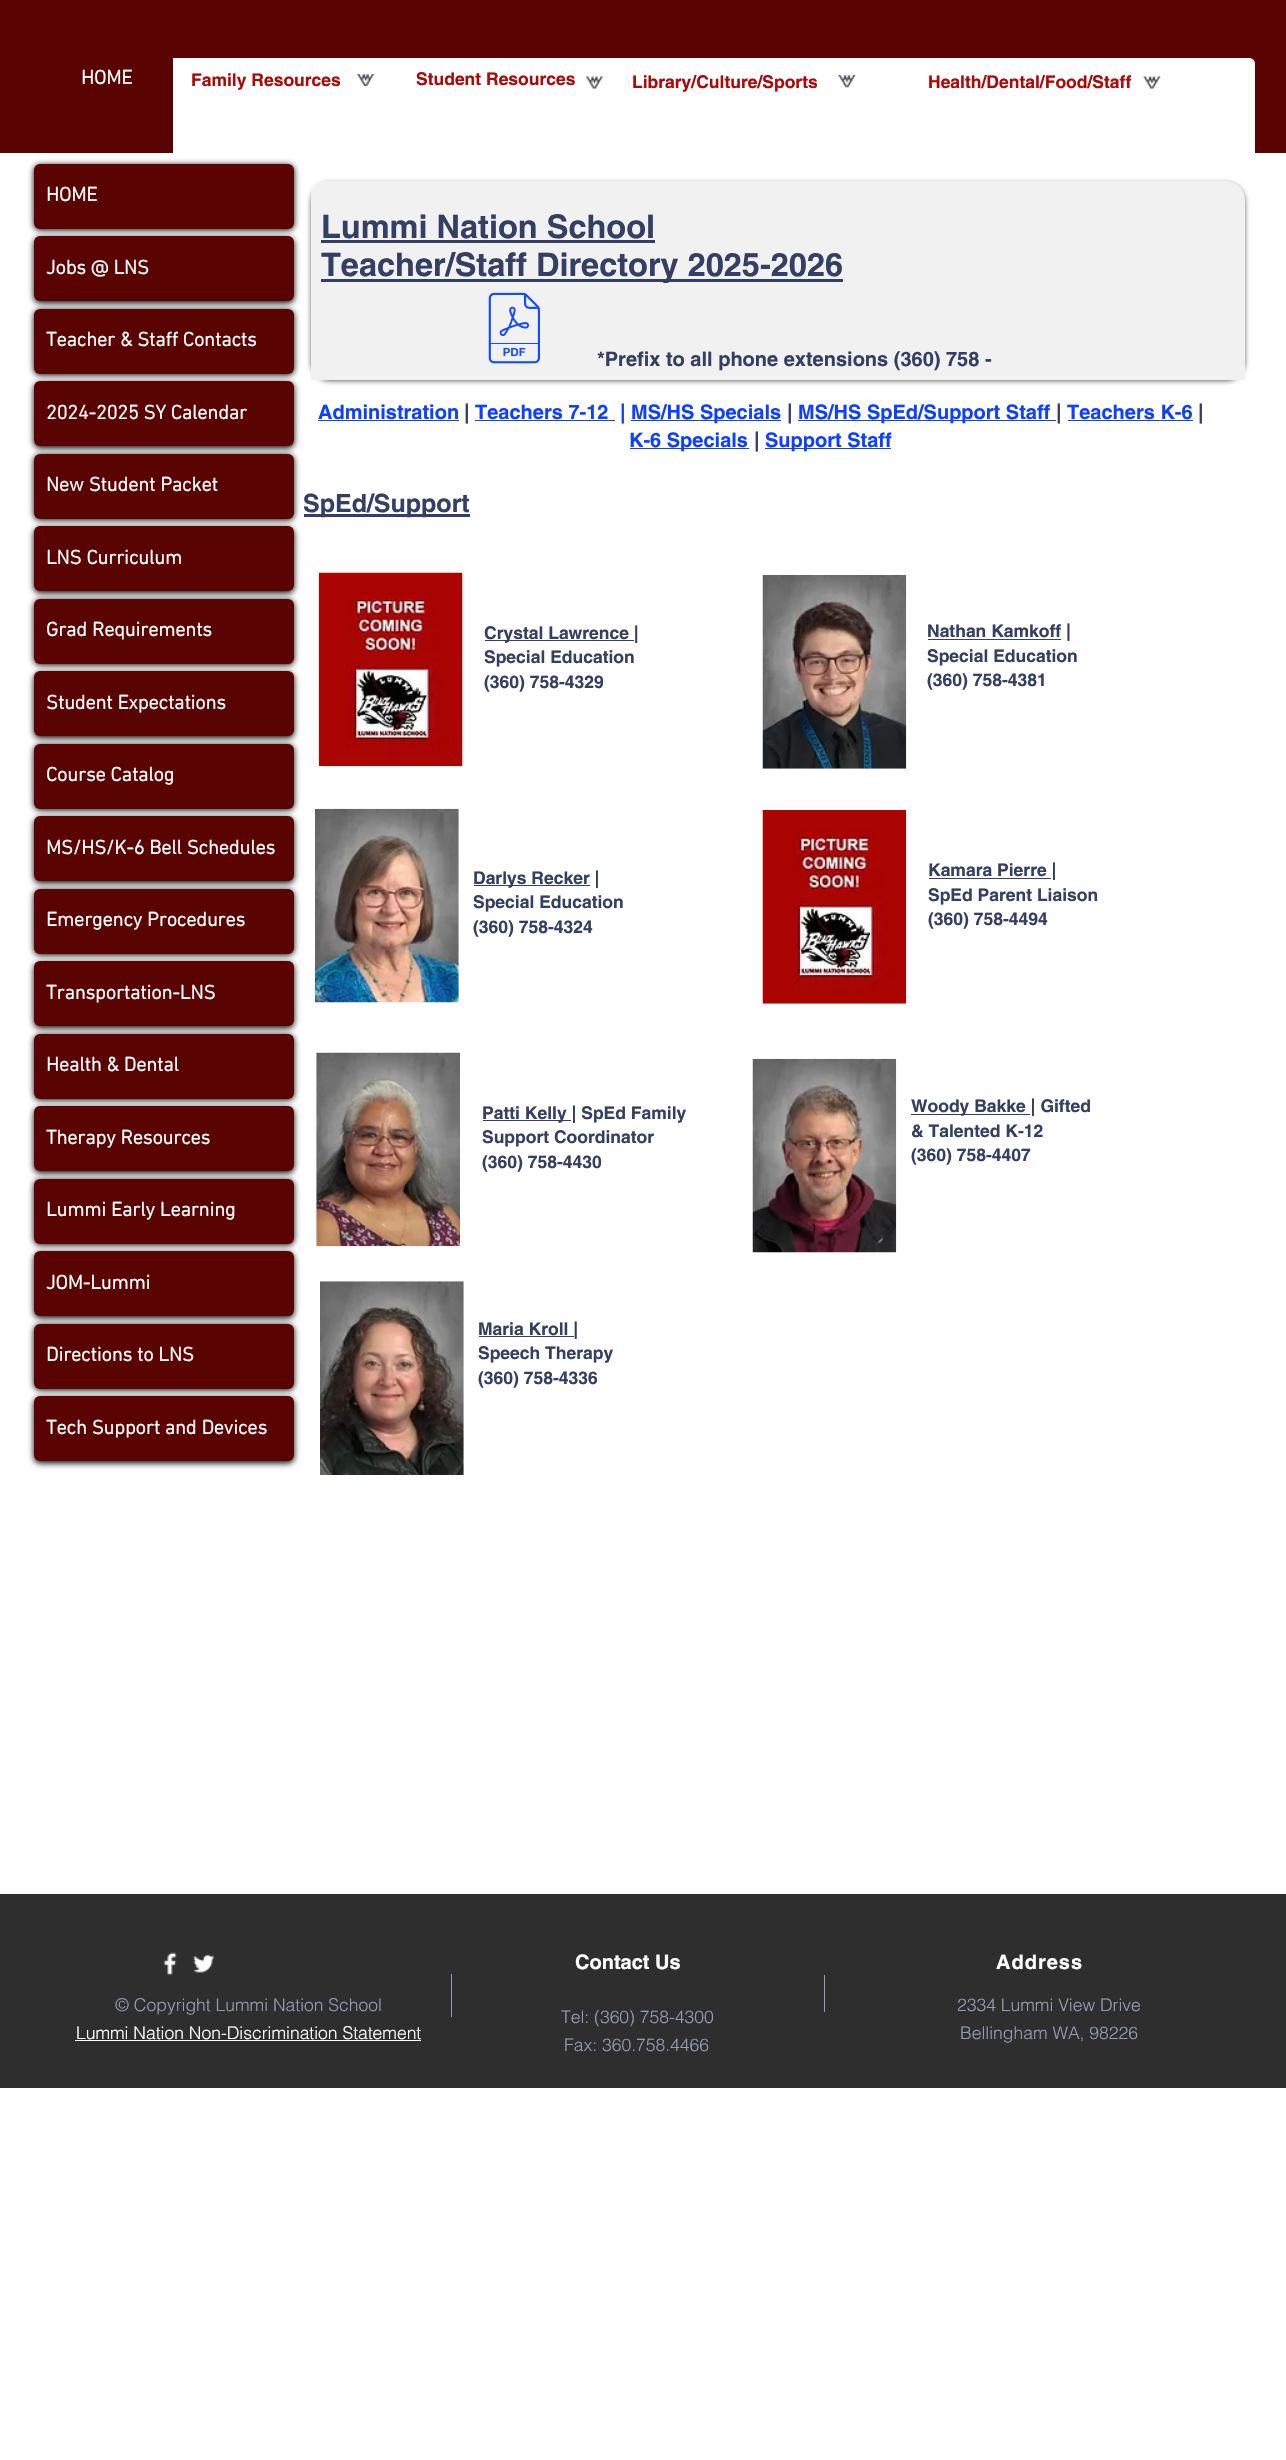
void draw(SkCanvas* canvas) {
    SkPaint paint;
    paint.setAntiAlias(true);
    auto spacedText = [&](const char* s, float x, float y, const SkFont& font, const SkPaint& ink, float letter, float word) {
        std::vector<SkGlyphID> glyphs(font.countText(s, strlen(s), SkTextEncoding::kUTF8));
        std::vector<float> xs(glyphs.size());
        font.textToGlyphs(s, strlen(s), SkTextEncoding::kUTF8, glyphs);
        font.getXPos(glyphs, xs, x);
        float extra = 0;
        for (size_t i = 0; i < glyphs.size(); i++) {
            xs[i] += extra;
            extra += letter + word * (glyphs[i] == font.unicharToGlyph(' '));
        }
        canvas->drawTextBlob(SkTextBlob::MakeFromPosHGlyphs(glyphs, xs, y, font), 0, 0, ink);
    };
    canvas->clear(0xFFFFFFFF);
    paint.setColor(0xFF5A0303);
    canvas->drawRect(SkRect::MakeXYWH(0, 0, 1286, 153), paint);
    SkFont font1(fontMgr->matchFamilyStyle("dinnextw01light", SkFontStyle::Bold()), 20);
    font1.setSubpixel(true);
    paint.setColor(0xFFFFFFFF);
    canvas->drawString("HOME", 81, 84, font1, paint);
    paint.setColor(0xFF000000);
    paint.setMaskFilter(SkMaskFilter::MakeBlur(kNormal_SkBlurStyle, 3));
    canvas->drawRoundRect(SkRect::MakeXYWH(34, 165, 260, 65), 6, 6, paint);
    paint.setMaskFilter(nullptr);
    paint.setColor(0xFF5A0303);
    canvas->drawRoundRect(SkRect::MakeXYWH(34, 164, 260, 65), 6, 6, paint);
    paint.setColor(0xFFFFFFFF);
    canvas->drawString("HOME", 46, 201, font1, paint);
    paint.setColor(0xFF000000);
    paint.setMaskFilter(SkMaskFilter::MakeBlur(kNormal_SkBlurStyle, 3));
    canvas->drawRoundRect(SkRect::MakeXYWH(34, 238, 260, 65), 6, 6, paint);
    paint.setMaskFilter(nullptr);
    paint.setColor(0xFF5A0303);
    canvas->drawRoundRect(SkRect::MakeXYWH(34, 236, 260, 65), 6, 6, paint);
    paint.setColor(0xFFFFFFFF);
    canvas->drawString("Jobs @ LNS", 46, 274, font1, paint);
    paint.setColor(0xFF000000);
    paint.setMaskFilter(SkMaskFilter::MakeBlur(kNormal_SkBlurStyle, 3));
    canvas->drawRoundRect(SkRect::MakeXYWH(34, 310, 260, 65), 6, 6, paint);
    paint.setMaskFilter(nullptr);
    paint.setColor(0xFF5A0303);
    canvas->drawRoundRect(SkRect::MakeXYWH(34, 309, 260, 65), 6, 6, paint);
    paint.setColor(0xFFFFFFFF);
    canvas->drawString("Teacher & Staff Contacts", 46, 346, font1, paint);
    paint.setColor(0xFF000000);
    paint.setMaskFilter(SkMaskFilter::MakeBlur(kNormal_SkBlurStyle, 3));
    canvas->drawRoundRect(SkRect::MakeXYWH(34, 383, 260, 65), 6, 6, paint);
    paint.setMaskFilter(nullptr);
    paint.setColor(0xFF5A0303);
    canvas->drawRoundRect(SkRect::MakeXYWH(34, 381, 260, 65), 6, 6, paint);
    paint.setColor(0xFFFFFFFF);
    canvas->drawString("2024-2025 SY Calendar", 46, 419, font1, paint);
    paint.setColor(0xFF000000);
    paint.setMaskFilter(SkMaskFilter::MakeBlur(kNormal_SkBlurStyle, 3));
    canvas->drawRoundRect(SkRect::MakeXYWH(34, 455, 260, 65), 6, 6, paint);
    paint.setMaskFilter(nullptr);
    paint.setColor(0xFF5A0303);
    canvas->drawRoundRect(SkRect::MakeXYWH(34, 454, 260, 65), 6, 6, paint);
    paint.setColor(0xFFFFFFFF);
    canvas->drawString("New Student Packet", 46, 491, font1, paint);
    paint.setColor(0xFF000000);
    paint.setMaskFilter(SkMaskFilter::MakeBlur(kNormal_SkBlurStyle, 3));
    canvas->drawRoundRect(SkRect::MakeXYWH(34, 528, 260, 65), 6, 6, paint);
    paint.setMaskFilter(nullptr);
    paint.setColor(0xFF5A0303);
    canvas->drawRoundRect(SkRect::MakeXYWH(34, 526, 260, 65), 6, 6, paint);
    paint.setColor(0xFFFFFFFF);
    canvas->drawString("LNS Curriculum", 46, 564, font1, paint);
    paint.setColor(0xFF000000);
    paint.setMaskFilter(SkMaskFilter::MakeBlur(kNormal_SkBlurStyle, 3));
    canvas->drawRoundRect(SkRect::MakeXYWH(34, 600, 260, 65), 6, 6, paint);
    paint.setMaskFilter(nullptr);
    paint.setColor(0xFF5A0303);
    canvas->drawRoundRect(SkRect::MakeXYWH(34, 599, 260, 65), 6, 6, paint);
    paint.setColor(0xFFFFFFFF);
    canvas->drawString("Grad Requirements", 46, 636, font1, paint);
    paint.setColor(0xFF000000);
    paint.setMaskFilter(SkMaskFilter::MakeBlur(kNormal_SkBlurStyle, 3));
    canvas->drawRoundRect(SkRect::MakeXYWH(34, 673, 260, 65), 6, 6, paint);
    paint.setMaskFilter(nullptr);
    paint.setColor(0xFF5A0303);
    canvas->drawRoundRect(SkRect::MakeXYWH(34, 671, 260, 65), 6, 6, paint);
    paint.setColor(0xFFFFFFFF);
    canvas->drawString("Student Expectations", 46, 709, font1, paint);
    paint.setColor(0xFF000000);
    paint.setMaskFilter(SkMaskFilter::MakeBlur(kNormal_SkBlurStyle, 3));
    canvas->drawRoundRect(SkRect::MakeXYWH(34, 745, 260, 65), 6, 6, paint);
    paint.setMaskFilter(nullptr);
    paint.setColor(0xFF5A0303);
    canvas->drawRoundRect(SkRect::MakeXYWH(34, 744, 260, 65), 6, 6, paint);
    paint.setColor(0xFFFFFFFF);
    canvas->drawString("Course Catalog", 46, 781, font1, paint);
    paint.setColor(0xFF000000);
    paint.setMaskFilter(SkMaskFilter::MakeBlur(kNormal_SkBlurStyle, 3));
    canvas->drawRoundRect(SkRect::MakeXYWH(34, 818, 260, 65), 6, 6, paint);
    paint.setMaskFilter(nullptr);
    paint.setColor(0xFF5A0303);
    canvas->drawRoundRect(SkRect::MakeXYWH(34, 816, 260, 65), 6, 6, paint);
    paint.setColor(0xFFFFFFFF);
    canvas->drawString("MS/HS/K-6 Bell Schedules", 46, 854, font1, paint);
    paint.setColor(0xFF000000);
    paint.setMaskFilter(SkMaskFilter::MakeBlur(kNormal_SkBlurStyle, 3));
    canvas->drawRoundRect(SkRect::MakeXYWH(34, 890, 260, 65), 6, 6, paint);
    paint.setMaskFilter(nullptr);
    paint.setColor(0xFF5A0303);
    canvas->drawRoundRect(SkRect::MakeXYWH(34, 889, 260, 65), 6, 6, paint);
    paint.setColor(0xFFFFFFFF);
    canvas->drawString("Emergency Procedures", 46, 926, font1, paint);
    paint.setColor(0xFF000000);
    paint.setMaskFilter(SkMaskFilter::MakeBlur(kNormal_SkBlurStyle, 3));
    canvas->drawRoundRect(SkRect::MakeXYWH(34, 963, 260, 65), 6, 6, paint);
    paint.setMaskFilter(nullptr);
    paint.setColor(0xFF5A0303);
    canvas->drawRoundRect(SkRect::MakeXYWH(34, 961, 260, 65), 6, 6, paint);
    paint.setColor(0xFFFFFFFF);
    canvas->drawString("Transportation-LNS", 46, 999, font1, paint);
    paint.setColor(0xFF000000);
    paint.setMaskFilter(SkMaskFilter::MakeBlur(kNormal_SkBlurStyle, 3));
    canvas->drawRoundRect(SkRect::MakeXYWH(34, 1035, 260, 65), 6, 6, paint);
    paint.setMaskFilter(nullptr);
    paint.setColor(0xFF5A0303);
    canvas->drawRoundRect(SkRect::MakeXYWH(34, 1034, 260, 65), 6, 6, paint);
    paint.setColor(0xFFFFFFFF);
    canvas->drawString("Health & Dental", 46, 1071, font1, paint);
    paint.setColor(0xFF000000);
    paint.setMaskFilter(SkMaskFilter::MakeBlur(kNormal_SkBlurStyle, 3));
    canvas->drawRoundRect(SkRect::MakeXYWH(34, 1108, 260, 65), 6, 6, paint);
    paint.setMaskFilter(nullptr);
    paint.setColor(0xFF5A0303);
    canvas->drawRoundRect(SkRect::MakeXYWH(34, 1106, 260, 65), 6, 6, paint);
    paint.setColor(0xFFFFFFFF);
    canvas->drawString("Therapy Resources", 46, 1144, font1, paint);
    paint.setColor(0xFF000000);
    paint.setMaskFilter(SkMaskFilter::MakeBlur(kNormal_SkBlurStyle, 3));
    canvas->drawRoundRect(SkRect::MakeXYWH(34, 1180, 260, 65), 6, 6, paint);
    paint.setMaskFilter(nullptr);
    paint.setColor(0xFF5A0303);
    canvas->drawRoundRect(SkRect::MakeXYWH(34, 1179, 260, 65), 6, 6, paint);
    paint.setColor(0xFFFFFFFF);
    canvas->drawString("Lummi Early Learning", 46, 1216, font1, paint);
    paint.setColor(0xFF000000);
    paint.setMaskFilter(SkMaskFilter::MakeBlur(kNormal_SkBlurStyle, 3));
    canvas->drawRoundRect(SkRect::MakeXYWH(34, 1253, 260, 65), 6, 6, paint);
    paint.setMaskFilter(nullptr);
    paint.setColor(0xFF5A0303);
    canvas->drawRoundRect(SkRect::MakeXYWH(34, 1251, 260, 65), 6, 6, paint);
    paint.setColor(0xFFFFFFFF);
    canvas->drawString("JOM-Lummi", 46, 1289, font1, paint);
    paint.setColor(0xFF000000);
    paint.setMaskFilter(SkMaskFilter::MakeBlur(kNormal_SkBlurStyle, 3));
    canvas->drawRoundRect(SkRect::MakeXYWH(34, 1325, 260, 65), 6, 6, paint);
    paint.setMaskFilter(nullptr);
    paint.setColor(0xFF5A0303);
    canvas->drawRoundRect(SkRect::MakeXYWH(34, 1324, 260, 65), 6, 6, paint);
    paint.setColor(0xFFFFFFFF);
    canvas->drawString("Directions to LNS", 46, 1361, font1, paint);
    paint.setColor(0xFF000000);
    paint.setMaskFilter(SkMaskFilter::MakeBlur(kNormal_SkBlurStyle, 3));
    canvas->drawRoundRect(SkRect::MakeXYWH(34, 1398, 260, 65), 6, 6, paint);
    paint.setMaskFilter(nullptr);
    paint.setColor(0xFF5A0303);
    canvas->drawRoundRect(SkRect::MakeXYWH(34, 1396, 260, 65), 6, 6, paint);
    paint.setColor(0xFFFFFFFF);
    canvas->drawString("Tech Support and Devices", 46, 1434, font1, paint);
    canvas->drawPath(SkPathBuilder().moveTo(398, 58).lineTo(623, 58).lineTo(623, 460).lineTo(436, 460).cubicTo(415, 460, 398, 443, 398, 422).close().detach(), paint);
    SkFont font2(fontMgr->matchFamilyStyle("helvetica", SkFontStyle::Bold()), 17.5f);
    font2.setSubpixel(true);
    paint.setColor(0xFFAB0A0A);
    canvas->drawString("Student Resources", 416, 85, font2, paint);
    canvas->drawImageRect(SkImages::DeferredFromEncodedData(SkData::MakeFromFileName("img1.png")), SkRect::MakeXYWH(586, 76, 17, 13), SkSamplingOptions());
    paint.setColor(0xFFFFFFFF);
    canvas->drawRect(SkRect::MakeXYWH(623, 58, 295, 95), paint);
    paint.setColor(0xFFAB0A0A);
    canvas->drawString("Library/Culture/Sports", 632, 88, font2, paint);
    canvas->drawImageRect(SkImages::DeferredFromEncodedData(SkData::MakeFromFileName("img2.png")), SkRect::MakeXYWH(838, 75, 18, 13), SkSamplingOptions());
    paint.setColor(0xFFFFFFFF);
    canvas->drawRect(SkRect::MakeXYWH(173, 58, 225, 95), paint);
    paint.setColor(0xFFAB0A0A);
    canvas->drawString("Family Resources", 191, 86, font2, paint);
    canvas->drawImageRect(SkImages::DeferredFromEncodedData(SkData::MakeFromFileName("img3.png")), SkRect::MakeXYWH(357, 73, 18, 14), SkSamplingOptions());
    paint.setColor(0xFFFFFFFF);
    canvas->drawPath(SkPathBuilder().moveTo(918, 58).lineTo(1249, 58).cubicTo(1252.5f, 58, 1255, 60.5f, 1255, 64).lineTo(1255, 295).lineTo(918, 295).close().detach(), paint);
    paint.setColor(0xFFAB0A0A);
    canvas->drawString("Health/Dental/Food/Staff", 928, 88, font2, paint);
    canvas->drawImageRect(SkImages::DeferredFromEncodedData(SkData::MakeFromFileName("img4.png")), SkRect::MakeXYWH(1143, 76, 18, 13), SkSamplingOptions());
    canvas->save();
    canvas->clipPath(SkPathBuilder(SkPathFillType::kEvenOdd).moveTo(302, 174).lineTo(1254, 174).lineTo(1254, 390).lineTo(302, 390).close().moveTo(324, 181).lineTo(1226, 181).cubicTo(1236.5f, 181, 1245, 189.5f, 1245, 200).lineTo(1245, 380).lineTo(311, 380).lineTo(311, 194).cubicTo(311, 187, 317, 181, 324, 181).close().detach(), true);
    paint.setColor(0x99000000);
    paint.setMaskFilter(SkMaskFilter::MakeBlur(kNormal_SkBlurStyle, 2.5f));
    canvas->drawRoundRect(SkRect::MakeXYWH(311, 183, 934, 198), 19, 19, paint);
    paint.setMaskFilter(nullptr);
    canvas->restore();
    paint.setColor(0x26A0A09F);
    canvas->drawPath(SkPathBuilder().moveTo(324, 181).lineTo(1226, 181).cubicTo(1236.5f, 181, 1245, 189.5f, 1245, 200).lineTo(1245, 380).lineTo(311, 380).lineTo(311, 194).cubicTo(311, 187, 317, 181, 324, 181).close().detach(), paint);
    SkFont font3(fontMgr->matchFamilyStyle("helvetica", SkFontStyle::Bold()), 32.5f);
    font3.setSubpixel(true);
    paint.setColor(0xFF343F64);
    canvas->drawString("Lummi Nation School", 321, 238, font3, paint);
    canvas->drawRect(SkRect::MakeXYWH(321, 240, 334, 3), paint);
    canvas->drawRect(SkRect::MakeXYWH(321, 279, 522, 3), paint);
    canvas->drawString("Teacher/Staff Directory 2025-2026", 321, 276, font3, paint);
    canvas->drawImageRect(SkImages::DeferredFromEncodedData(SkData::MakeFromFileName("img5.png")), SkRect::MakeXYWH(488, 292, 52, 72), SkSamplingOptions());
    SkFont font4(fontMgr->matchFamilyStyle("helvetica", SkFontStyle::Bold()), 20);
    font4.setSubpixel(true);
    canvas->drawString("*Prefix to all phone extensions (360) 758 -", 597, 366, font4, paint);
    paint.setColor(0xFF0F40FE);
    canvas->drawString("Administration", 318, 419, font4, paint);
    canvas->drawRect(SkRect::MakeXYWH(318, 420, 141, 1), paint);
    paint.setColor(0xFF343F64);
    canvas->drawString("|", 464, 419, font4, paint);
    paint.setColor(0xFF0F40FE);
    canvas->drawString("Teachers 7-12", 475, 419, font4, paint);
    canvas->drawRect(SkRect::MakeXYWH(475, 420, 140, 1), paint);
    canvas->drawString("|", 620, 419, font4, paint);
    canvas->drawRect(SkRect::MakeXYWH(631, 420, 150, 1), paint);
    canvas->drawString("MS/HS Specials", 631, 419, font4, paint);
    paint.setColor(0xFF343F64);
    canvas->drawString("|", 787, 419, font4, paint);
    paint.setColor(0xFF0F40FE);
    canvas->drawRect(SkRect::MakeXYWH(798, 420, 258, 1), paint);
    canvas->drawString("MS/HS SpEd/Support Staff", 798, 419, font4, paint);
    paint.setColor(0xFF343F64);
    canvas->drawString("|", 1056, 419, font4, paint);
    paint.setColor(0xFF0F40FE);
    canvas->drawString("Teachers K-6", 1067, 419, font4, paint);
    canvas->drawRect(SkRect::MakeXYWH(1068, 420, 125, 1), paint);
    paint.setColor(0xFF343F64);
    canvas->drawString("|", 1198, 419, font4, paint);
    paint.setColor(0xFF0F40FE);
    canvas->drawRect(SkRect::MakeXYWH(630, 448, 119, 1), paint);
    canvas->drawString("K-6 Specials", 629, 447, font4, paint);
    paint.setColor(0xFF343F64);
    canvas->drawString("|", 754, 447, font4, paint);
    paint.setColor(0xFF0F40FE);
    canvas->drawRect(SkRect::MakeXYWH(765, 448, 126, 1), paint);
    canvas->drawString("Support Staff", 765, 447, font4, paint);
    paint.setColor(0xFF343F64);
    canvas->drawRect(SkRect::MakeXYWH(304, 514, 166, 3), paint);
    SkFont font5(fontMgr->matchFamilyStyle("helvetica", SkFontStyle::Bold()), 25);
    font5.setSubpixel(true);
    canvas->drawString("SpEd/Support", 303, 512, font5, paint);
    canvas->drawImageRect(SkImages::DeferredFromEncodedData(SkData::MakeFromFileName("img6.png")), SkRect::MakeXYWH(318, 572, 145, 195), SkSamplingOptions());
    canvas->drawRect(SkRect::MakeXYWH(485, 640, 149, 1), paint);
    canvas->drawString("Crystal Lawrence |", 484, 639, font2, paint);
    canvas->drawString("Special Education", 484, 663, font2, paint);
    canvas->drawString("(360) 758-4329", 484, 688, font2, paint);
    canvas->drawImageRect(SkImages::DeferredFromEncodedData(SkData::MakeFromFileName("img7.png")), SkRect::MakeXYWH(762, 575, 145, 194), SkSamplingOptions());
    canvas->drawRect(SkRect::MakeXYWH(928, 639, 133, 1), paint);
    canvas->drawString("Nathan Kamkoff |", 927, 637, font2, paint);
    canvas->drawString("Special Education", 927, 662, font2, paint);
    canvas->drawString("(360) 758-4381", 927, 686, font2, paint);
    canvas->drawImageRect(SkImages::DeferredFromEncodedData(SkData::MakeFromFileName("img8.png")), SkRect::MakeXYWH(315, 808, 144, 195), SkSamplingOptions());
    canvas->drawRect(SkRect::MakeXYWH(474, 885, 116, 1), paint);
    canvas->drawString("Darlys Recker |", 473, 884, font2, paint);
    canvas->drawString("Special Education", 473, 908, font2, paint);
    canvas->drawString("(360) 758-4324", 473, 933, font2, paint);
    canvas->drawImageRect(SkImages::DeferredFromEncodedData(SkData::MakeFromFileName("img9.png")), SkRect::MakeXYWH(762, 810, 145, 194), SkSamplingOptions());
    canvas->drawRect(SkRect::MakeXYWH(929, 878, 122, 1), paint);
    canvas->drawString("Kamara Pierre |", 928, 876, font2, paint);
    canvas->drawString("SpEd Parent Liaison", 928, 901, font2, paint);
    canvas->drawString("(360) 758-4494", 928, 925, font2, paint);
    canvas->drawImageRect(SkImages::DeferredFromEncodedData(SkData::MakeFromFileName("img10.png")), SkRect::MakeXYWH(316, 1052, 144, 195), SkSamplingOptions());
    canvas->drawRect(SkRect::MakeXYWH(483, 1120, 88, 1), paint);
    canvas->drawString("Patti Kelly | SpEd Family", 482, 1119, font2, paint);
    canvas->drawString("Support Coordinator", 482, 1143, font2, paint);
    canvas->drawString("(360) 758-4430", 482, 1168, font2, paint);
    canvas->drawImageRect(SkImages::DeferredFromEncodedData(SkData::MakeFromFileName("img11.png")), SkRect::MakeXYWH(752, 1058, 145, 195), SkSamplingOptions());
    canvas->drawRect(SkRect::MakeXYWH(911, 1114, 119, 1), paint);
    canvas->drawString("Woody Bakke | Gifted", 911, 1112, font2, paint);
    canvas->drawString("& Talented K-12", 911, 1137, font2, paint);
    canvas->drawString("(360) 758-4407", 911, 1161, font2, paint);
    canvas->drawImageRect(SkImages::DeferredFromEncodedData(SkData::MakeFromFileName("img12.png")), SkRect::MakeXYWH(320, 1281, 144, 194), SkSamplingOptions());
    canvas->drawRect(SkRect::MakeXYWH(479, 1336, 95, 1), paint);
    canvas->drawString("Maria Kroll |", 478, 1335, font2, paint);
    canvas->drawString("Speech Therapy", 478, 1359, font2, paint);
    canvas->drawString("(360) 758-4336", 478, 1384, font2, paint);
    paint.setColor(0xFF2F2E2E);
    canvas->drawRect(SkRect::MakeXYWH(0, 1894, 1286, 194), paint);
    canvas->drawImageRect(SkImages::DeferredFromEncodedData(SkData::MakeFromFileName("img13.png")), SkRect::MakeXYWH(163, 1952, 14, 24), SkSamplingOptions());
    canvas->drawImageRect(SkImages::DeferredFromEncodedData(SkData::MakeFromFileName("img14.png")), SkRect::MakeXYWH(193, 1954, 21, 19), SkSamplingOptions());
    paint.setColor(0xFFFFFFFF);
    canvas->drawString("Contact Us", 575, 1969, font4, paint);
    spacedText("Address", 996, 1969, font4, paint, 1, 0);
    paint.setColor(0xFF959CB2);
    canvas->drawRect(SkRect::MakeXYWH(451, 1974, 1, 43), paint);
    canvas->drawRect(SkRect::MakeXYWH(824, 1975, 1, 37), paint);
    SkFont font6(fontMgr->matchFamilyStyle("helvetica", SkFontStyle(300, SkFontStyle::kNormal_Width, SkFontStyle::kUpright_Slant)), 17.5f);
    font6.setSubpixel(true);
    canvas->drawString("© Copyright Lummi Nation School", 115, 2011, font6, paint);
    paint.setColor(0xFFFFFFFF);
    canvas->drawString("Lummi Nation Non-Discrimination Statement", 76, 2039, font6, paint);
    canvas->drawRect(SkRect::MakeXYWH(75, 2040, 346, 1), paint);
    paint.setColor(0xFF959CB2);
    canvas->drawString("Tel: (360) 758-4300", 561, 2023, font6, paint);
    canvas->drawString("Fax: 360.758.4466", 564, 2051, font6, paint);
    canvas->drawString("2334 Lummi View Drive", 957, 2011, font6, paint);
    canvas->drawString("Bellingham WA, 98226", 960, 2039, font6, paint);
}
